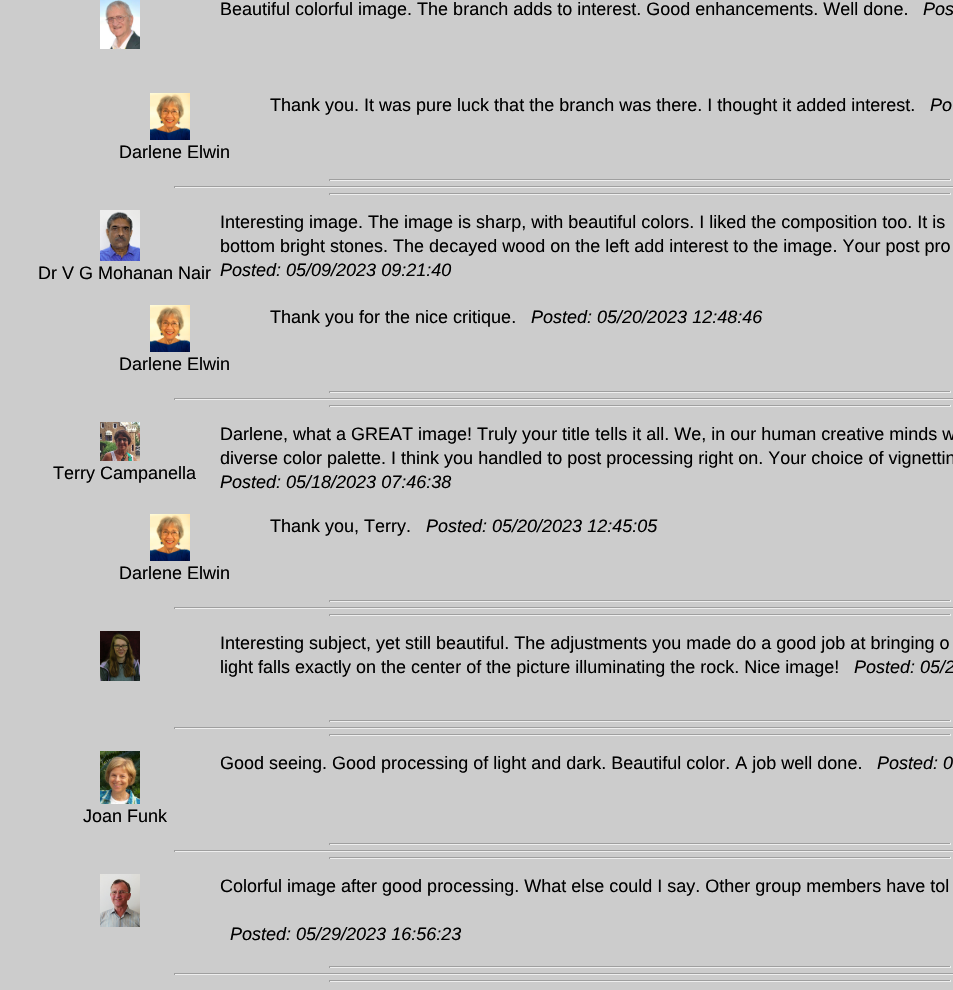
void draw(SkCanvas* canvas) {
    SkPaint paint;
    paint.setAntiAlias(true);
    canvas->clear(0xFFCCCCCC);
    canvas->drawImageRect(SkImages::DeferredFromEncodedData(SkData::MakeFromFileName("img1.png")), SkRect::MakeXYWH(100, 0, 40, 49), SkSamplingOptions());
    SkFont font1(fontMgr->matchFamilyStyle("Liberation Sans", SkFontStyle::Normal()), 18);
    font1.setSubpixel(true);
    paint.setColor(0xFF000000);
    canvas->drawString("Beautiful colorful image. The branch adds to interest. Good enhancements. Well done.", 220, 15, font1, paint);
    SkFont font2(fontMgr->matchFamilyStyle("Liberation Sans", SkFontStyle::Italic()), 18);
    font2.setSubpixel(true);
    canvas->drawString("Pos", 923, 15, font2, paint);
    canvas->drawString("Thank you. It was pure luck that the branch was there. I thought it added interest.", 270, 111, font1, paint);
    canvas->drawString("Po", 930, 111, font2, paint);
    canvas->drawImageRect(SkImages::DeferredFromEncodedData(SkData::MakeFromFileName("img2.png")), SkRect::MakeXYWH(150, 93, 40, 47), SkSamplingOptions());
    canvas->drawString("Darlene Elwin", 119, 158, font1, paint);
    paint.setColor(0xFF9F9F9F);
    canvas->drawRect(SkRect::MakeXYWH(329, 179, 622, 1), paint);
    paint.setColor(0xFFEEEEEE);
    canvas->drawRect(SkRect::MakeXYWH(950, 179, 1, 2), paint);
    canvas->drawRect(SkRect::MakeXYWH(329, 180, 622, 1), paint);
    paint.setColor(0xFF9F9F9F);
    canvas->drawRect(SkRect::MakeXYWH(329, 179, 1, 2), paint);
    canvas->drawRect(SkRect::MakeXYWH(174, 186, 779, 1), paint);
    paint.setColor(0xFFEEEEEE);
    canvas->drawRect(SkRect::MakeXYWH(174, 187, 779, 1), paint);
    paint.setColor(0xFF9F9F9F);
    canvas->drawRect(SkRect::MakeXYWH(174, 186, 1, 2), paint);
    canvas->drawRect(SkRect::MakeXYWH(329, 193, 622, 1), paint);
    paint.setColor(0xFFEEEEEE);
    canvas->drawRect(SkRect::MakeXYWH(950, 193, 1, 2), paint);
    canvas->drawRect(SkRect::MakeXYWH(329, 194, 622, 1), paint);
    paint.setColor(0xFF9F9F9F);
    canvas->drawRect(SkRect::MakeXYWH(329, 193, 1, 2), paint);
    canvas->drawImageRect(SkImages::DeferredFromEncodedData(SkData::MakeFromFileName("img3.png")), SkRect::MakeXYWH(100, 210, 40, 51), SkSamplingOptions());
    paint.setColor(0xFF000000);
    canvas->drawString("Dr V G Mohanan Nair", 38, 279, font1, paint);
    canvas->drawString("Interesting image. The image is sharp, with beautiful colors. I liked the composition too. It is", 220, 228, font1, paint);
    canvas->drawString("bottom bright stones. The decayed wood on the left add interest to the image. Your post pro", 220, 252, font1, paint);
    canvas->drawString("Posted: 05/09/2023 09:21:40", 220, 276, font2, paint);
    canvas->drawString("Thank you for the nice critique.", 270, 323, font1, paint);
    canvas->drawString("Posted: 05/20/2023 12:48:46", 531, 323, font2, paint);
    canvas->drawImageRect(SkImages::DeferredFromEncodedData(SkData::MakeFromFileName("img2.png")), SkRect::MakeXYWH(150, 305, 40, 47), SkSamplingOptions());
    canvas->drawString("Darlene Elwin", 119, 370, font1, paint);
    paint.setColor(0xFF9F9F9F);
    canvas->drawRect(SkRect::MakeXYWH(329, 391, 622, 1), paint);
    paint.setColor(0xFFEEEEEE);
    canvas->drawRect(SkRect::MakeXYWH(950, 391, 1, 2), paint);
    canvas->drawRect(SkRect::MakeXYWH(329, 392, 622, 1), paint);
    paint.setColor(0xFF9F9F9F);
    canvas->drawRect(SkRect::MakeXYWH(329, 391, 1, 2), paint);
    canvas->drawRect(SkRect::MakeXYWH(174, 398, 779, 1), paint);
    paint.setColor(0xFFEEEEEE);
    canvas->drawRect(SkRect::MakeXYWH(174, 399, 779, 1), paint);
    paint.setColor(0xFF9F9F9F);
    canvas->drawRect(SkRect::MakeXYWH(174, 398, 1, 2), paint);
    canvas->drawRect(SkRect::MakeXYWH(329, 405, 622, 1), paint);
    paint.setColor(0xFFEEEEEE);
    canvas->drawRect(SkRect::MakeXYWH(950, 405, 1, 2), paint);
    canvas->drawRect(SkRect::MakeXYWH(329, 406, 622, 1), paint);
    paint.setColor(0xFF9F9F9F);
    canvas->drawRect(SkRect::MakeXYWH(329, 405, 1, 2), paint);
    canvas->drawImageRect(SkImages::DeferredFromEncodedData(SkData::MakeFromFileName("img4.png")), SkRect::MakeXYWH(100, 422, 40, 39), SkSamplingOptions());
    paint.setColor(0xFF000000);
    canvas->drawString("Terry Campanella", 53, 479, font1, paint);
    canvas->drawString("Darlene, what a GREAT image! Truly your title tells it all. We, in our human creative minds w", 220, 440, font1, paint);
    canvas->drawString("diverse color palette. I think you handled to post processing right on. Your choice of vignettin", 220, 464, font1, paint);
    canvas->drawString("Posted: 05/18/2023 07:46:38", 220, 488, font2, paint);
    canvas->drawString("Thank you, Terry.", 270, 532, font1, paint);
    canvas->drawString("Posted: 05/20/2023 12:45:05", 426, 532, font2, paint);
    canvas->drawImageRect(SkImages::DeferredFromEncodedData(SkData::MakeFromFileName("img2.png")), SkRect::MakeXYWH(150, 514, 40, 47), SkSamplingOptions());
    canvas->drawString("Darlene Elwin", 119, 579, font1, paint);
    paint.setColor(0xFF9F9F9F);
    canvas->drawRect(SkRect::MakeXYWH(329, 600, 622, 1), paint);
    paint.setColor(0xFFEEEEEE);
    canvas->drawRect(SkRect::MakeXYWH(950, 600, 1, 2), paint);
    canvas->drawRect(SkRect::MakeXYWH(329, 601, 622, 1), paint);
    paint.setColor(0xFF9F9F9F);
    canvas->drawRect(SkRect::MakeXYWH(329, 600, 1, 2), paint);
    canvas->drawRect(SkRect::MakeXYWH(174, 607, 779, 1), paint);
    paint.setColor(0xFFEEEEEE);
    canvas->drawRect(SkRect::MakeXYWH(174, 608, 779, 1), paint);
    paint.setColor(0xFF9F9F9F);
    canvas->drawRect(SkRect::MakeXYWH(174, 607, 1, 2), paint);
    canvas->drawRect(SkRect::MakeXYWH(329, 614, 622, 1), paint);
    paint.setColor(0xFFEEEEEE);
    canvas->drawRect(SkRect::MakeXYWH(950, 614, 1, 2), paint);
    canvas->drawRect(SkRect::MakeXYWH(329, 615, 622, 1), paint);
    paint.setColor(0xFF9F9F9F);
    canvas->drawRect(SkRect::MakeXYWH(329, 614, 1, 2), paint);
    canvas->drawImageRect(SkImages::DeferredFromEncodedData(SkData::MakeFromFileName("img5.png")), SkRect::MakeXYWH(100, 631, 40, 50), SkSamplingOptions());
    paint.setColor(0xFF000000);
    canvas->drawString("Interesting subject, yet still beautiful. The adjustments you made do a good job at bringing o", 220, 649, font1, paint);
    canvas->drawString("light falls exactly on the center of the picture illuminating the rock. Nice image!", 220, 673, font1, paint);
    canvas->drawString("Posted: 05/2", 854, 673, font2, paint);
    paint.setColor(0xFF9F9F9F);
    canvas->drawRect(SkRect::MakeXYWH(329, 720, 622, 1), paint);
    paint.setColor(0xFFEEEEEE);
    canvas->drawRect(SkRect::MakeXYWH(950, 720, 1, 2), paint);
    canvas->drawRect(SkRect::MakeXYWH(329, 721, 622, 1), paint);
    paint.setColor(0xFF9F9F9F);
    canvas->drawRect(SkRect::MakeXYWH(329, 720, 1, 2), paint);
    canvas->drawRect(SkRect::MakeXYWH(174, 727, 779, 1), paint);
    paint.setColor(0xFFEEEEEE);
    canvas->drawRect(SkRect::MakeXYWH(174, 728, 779, 1), paint);
    paint.setColor(0xFF9F9F9F);
    canvas->drawRect(SkRect::MakeXYWH(174, 727, 1, 2), paint);
    canvas->drawRect(SkRect::MakeXYWH(329, 734, 622, 1), paint);
    paint.setColor(0xFFEEEEEE);
    canvas->drawRect(SkRect::MakeXYWH(950, 734, 1, 2), paint);
    canvas->drawRect(SkRect::MakeXYWH(329, 735, 622, 1), paint);
    paint.setColor(0xFF9F9F9F);
    canvas->drawRect(SkRect::MakeXYWH(329, 734, 1, 2), paint);
    paint.setColor(0xFF000000);
    canvas->drawString("Good seeing. Good processing of light and dark. Beautiful color. A job well done.", 220, 769, font1, paint);
    canvas->drawString("Posted: 0", 877, 769, font2, paint);
    canvas->drawImageRect(SkImages::DeferredFromEncodedData(SkData::MakeFromFileName("img6.png")), SkRect::MakeXYWH(100, 751, 40, 53), SkSamplingOptions());
    canvas->drawString("Joan Funk", 83, 822, font1, paint);
    paint.setColor(0xFF9F9F9F);
    canvas->drawRect(SkRect::MakeXYWH(329, 843, 622, 1), paint);
    paint.setColor(0xFFEEEEEE);
    canvas->drawRect(SkRect::MakeXYWH(950, 843, 1, 2), paint);
    canvas->drawRect(SkRect::MakeXYWH(329, 844, 622, 1), paint);
    paint.setColor(0xFF9F9F9F);
    canvas->drawRect(SkRect::MakeXYWH(329, 843, 1, 2), paint);
    canvas->drawRect(SkRect::MakeXYWH(174, 850, 779, 1), paint);
    paint.setColor(0xFFEEEEEE);
    canvas->drawRect(SkRect::MakeXYWH(174, 851, 779, 1), paint);
    paint.setColor(0xFF9F9F9F);
    canvas->drawRect(SkRect::MakeXYWH(174, 850, 1, 2), paint);
    canvas->drawRect(SkRect::MakeXYWH(329, 857, 622, 1), paint);
    paint.setColor(0xFFEEEEEE);
    canvas->drawRect(SkRect::MakeXYWH(950, 857, 1, 2), paint);
    canvas->drawRect(SkRect::MakeXYWH(329, 858, 622, 1), paint);
    paint.setColor(0xFF9F9F9F);
    canvas->drawRect(SkRect::MakeXYWH(329, 857, 1, 2), paint);
    canvas->drawImageRect(SkImages::DeferredFromEncodedData(SkData::MakeFromFileName("img7.png")), SkRect::MakeXYWH(100, 874, 40, 53), SkSamplingOptions());
    paint.setColor(0xFF000000);
    canvas->drawString("Colorful image after good processing. What else could I say. Other group members have tol", 220, 892, font1, paint);
    canvas->drawString("Posted: 05/29/2023 16:56:23", 230, 940, font2, paint);
    paint.setColor(0xFF9F9F9F);
    canvas->drawRect(SkRect::MakeXYWH(329, 966, 622, 1), paint);
    paint.setColor(0xFFEEEEEE);
    canvas->drawRect(SkRect::MakeXYWH(950, 966, 1, 2), paint);
    canvas->drawRect(SkRect::MakeXYWH(329, 967, 622, 1), paint);
    paint.setColor(0xFF9F9F9F);
    canvas->drawRect(SkRect::MakeXYWH(329, 966, 1, 2), paint);
    canvas->drawRect(SkRect::MakeXYWH(174, 973, 779, 1), paint);
    paint.setColor(0xFFEEEEEE);
    canvas->drawRect(SkRect::MakeXYWH(174, 974, 779, 1), paint);
    paint.setColor(0xFF9F9F9F);
    canvas->drawRect(SkRect::MakeXYWH(174, 973, 1, 2), paint);
    canvas->drawRect(SkRect::MakeXYWH(329, 980, 622, 1), paint);
    paint.setColor(0xFFEEEEEE);
    canvas->drawRect(SkRect::MakeXYWH(950, 980, 1, 2), paint);
    canvas->drawRect(SkRect::MakeXYWH(329, 981, 622, 1), paint);
    paint.setColor(0xFF9F9F9F);
    canvas->drawRect(SkRect::MakeXYWH(329, 980, 1, 2), paint);
}
